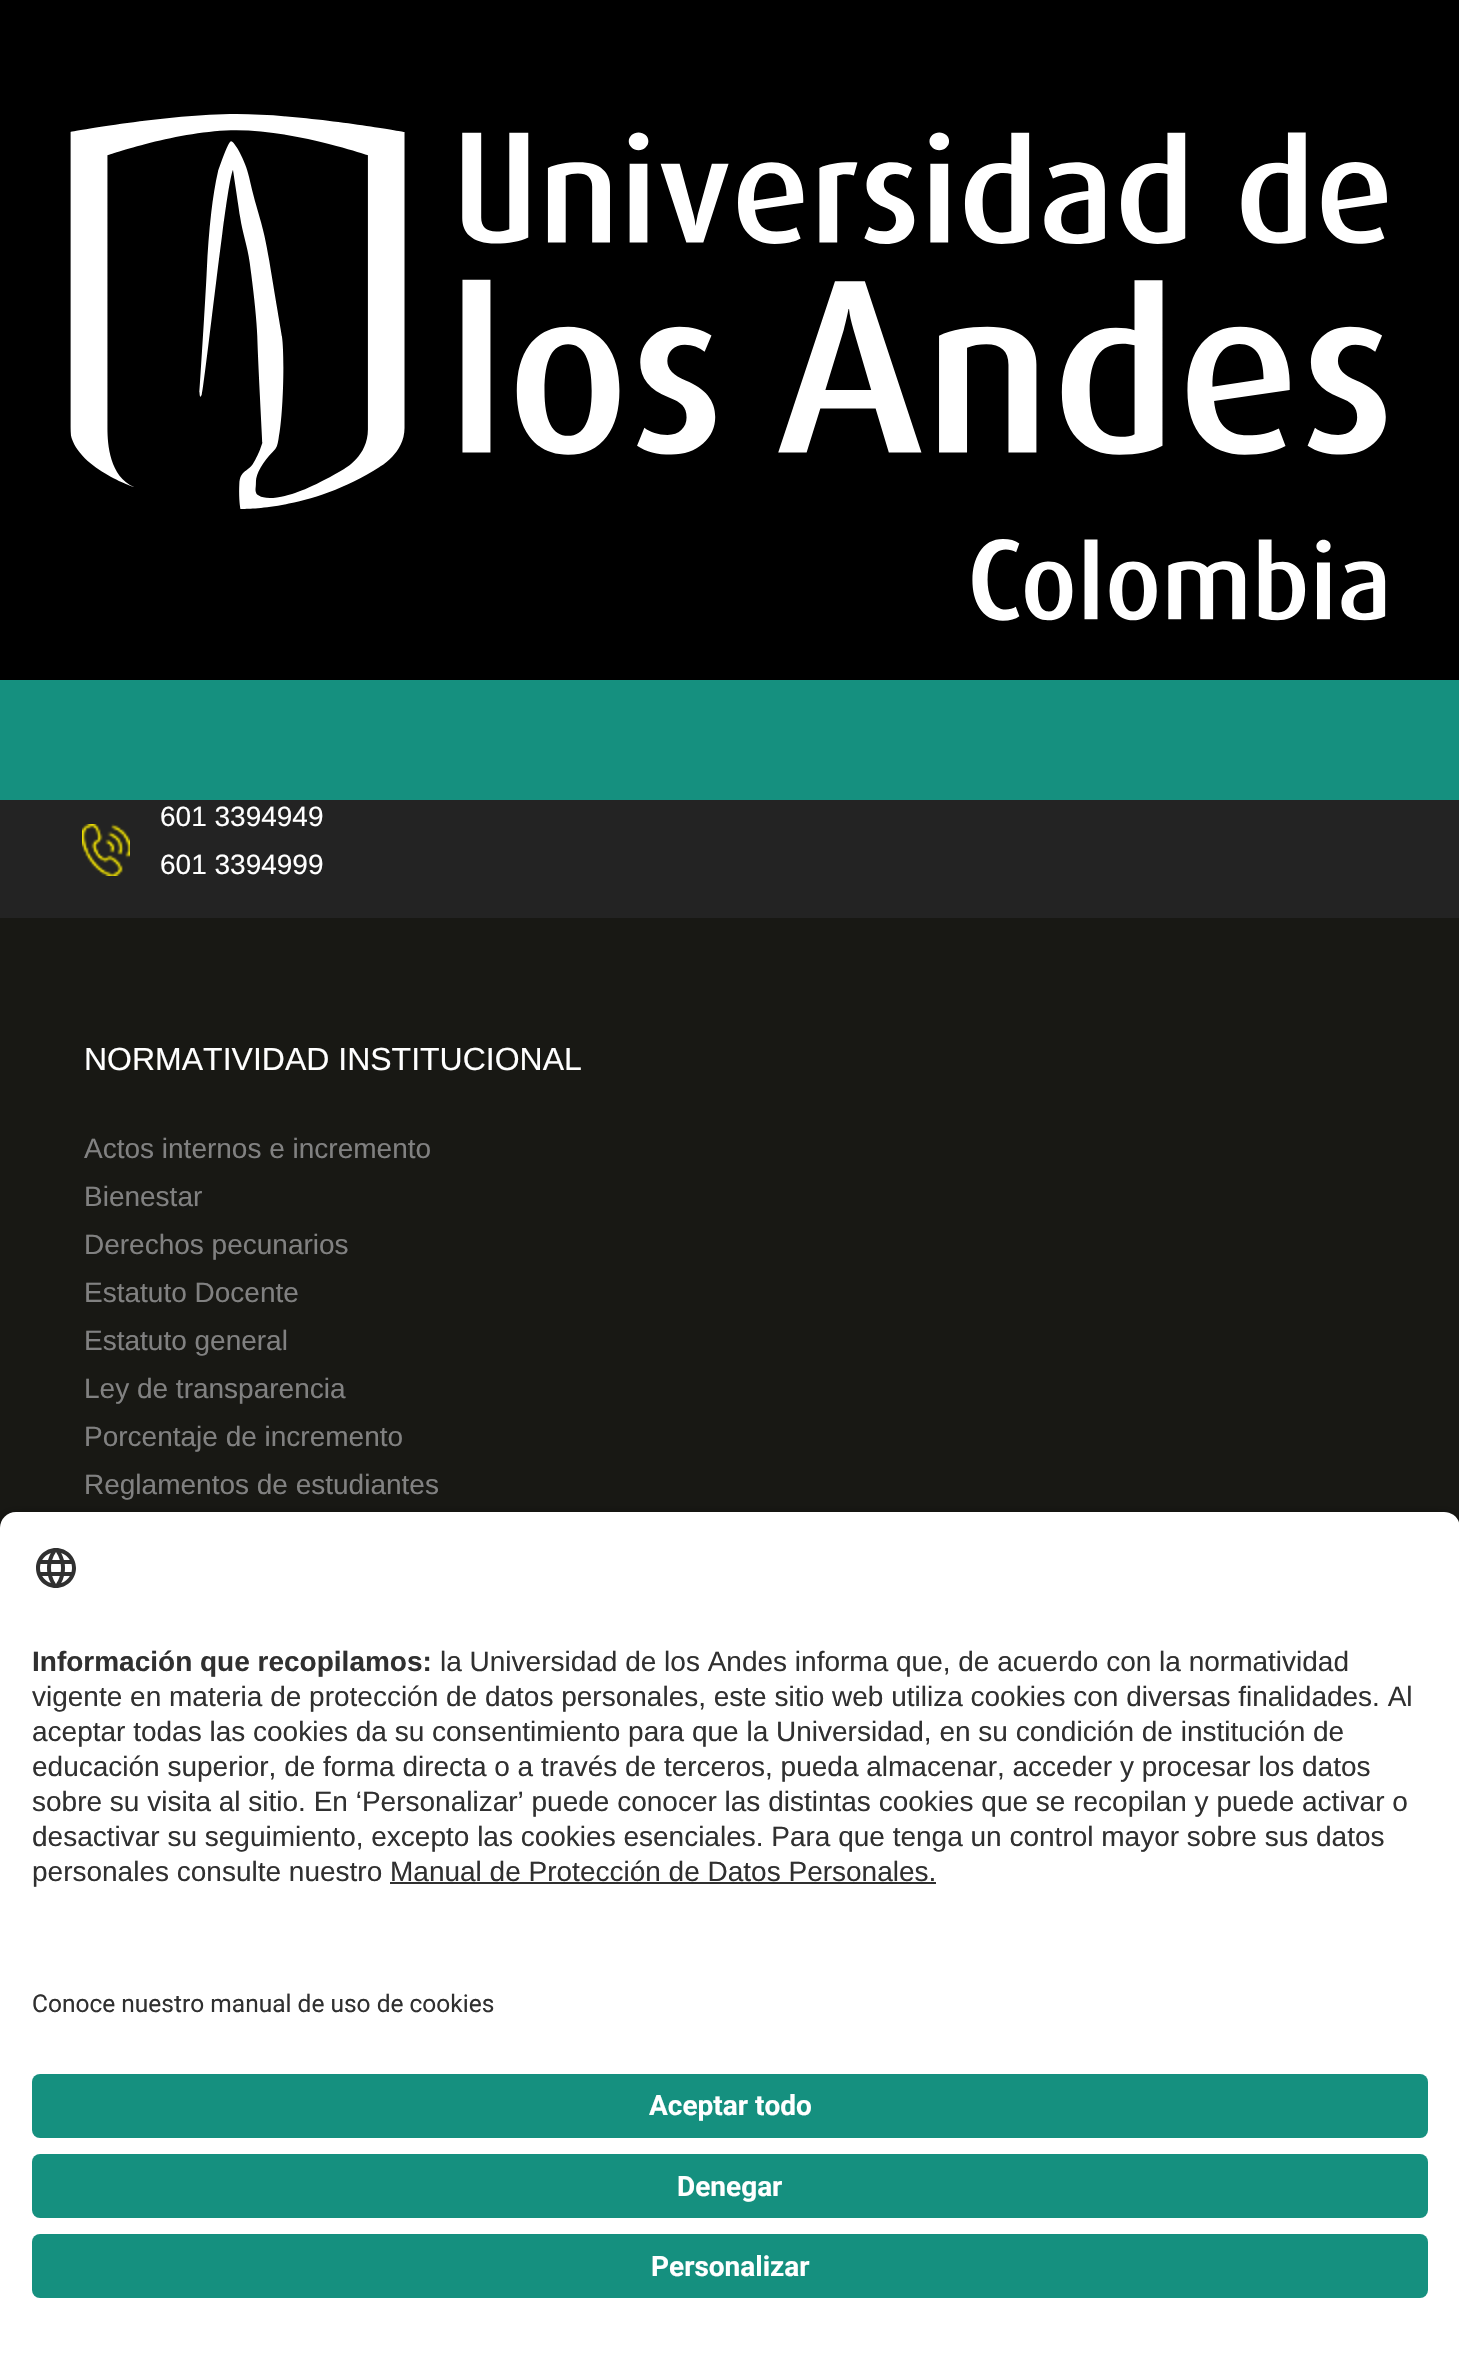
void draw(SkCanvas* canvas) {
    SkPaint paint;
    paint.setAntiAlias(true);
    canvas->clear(0xFF181814);
    paint.setColor(0xFF15907F);
    canvas->drawRect(SkRect::MakeXYWH(0, 680, 1459, 120), paint);
    paint.setColor(0xFF000000);
    canvas->drawRect(SkRect::MakeXYWH(0, 0, 1459, 680), paint);
    canvas->drawImageRect(SkImages::DeferredFromEncodedData(SkData::MakeFromFileName("img1.png")), SkRect::MakeXYWH(70, 114, 1317, 507), SkSamplingOptions());
    paint.setColor(0xFF232323);
    canvas->drawRect(SkRect::MakeXYWH(0, 800, 1459, 118), paint);
    canvas->drawImageRect(SkImages::DeferredFromEncodedData(SkData::MakeFromFileName("img2.png")), SkRect::MakeXYWH(82, 824, 48, 52), SkSamplingOptions());
    SkFont font1(fontMgr->matchFamilyStyle("Liberation Sans", SkFontStyle::Normal()), 28);
    font1.setSubpixel(true);
    paint.setColor(0xFFFFFFFF);
    canvas->drawString("601 3394949", 160, 826, font1, paint);
    canvas->drawString("601 3394999", 160, 874, font1, paint);
    SkFont font2(fontMgr->matchFamilyStyle("Liberation Sans", SkFontStyle::Normal()), 32);
    font2.setSubpixel(true);
    canvas->drawString("NORMATIVIDAD INSTITUCIONAL", 84, 1070, font2, paint);
    paint.setColor(0xFF818181);
    canvas->drawString("Actos internos e incremento", 84, 1158, font1, paint);
    canvas->drawString("Bienestar", 84, 1206, font1, paint);
    canvas->drawString("Derechos pecunarios", 84, 1254, font1, paint);
    canvas->drawString("Estatuto Docente", 84, 1302, font1, paint);
    canvas->drawString("Estatuto general", 84, 1350, font1, paint);
    canvas->drawString("Ley de transparencia", 84, 1398, font1, paint);
    canvas->drawString("Porcentaje de incremento", 84, 1446, font1, paint);
    canvas->drawString("Reglamentos de estudiantes", 84, 1494, font1, paint);
    paint.setColor(0xCC000000);
    paint.setMaskFilter(SkMaskFilter::MakeBlur(kNormal_SkBlurStyle, 7));
    canvas->drawRoundRect(SkRect::MakeXYWH(0, 1518, 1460, 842), 16, 16, paint);
    paint.setMaskFilter(nullptr);
    paint.setColor(0xFFFFFFFF);
    canvas->drawPath(SkPathBuilder().moveTo(16, 1512).lineTo(1444, 1512).cubicTo(1453, 1512, 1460, 1519, 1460, 1528).lineTo(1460, 1958).lineTo(0, 1958).lineTo(0, 1528).cubicTo(0, 1519, 7, 1512, 16, 1512).close().detach(), paint);
    canvas->drawImageRect(SkImages::DeferredFromEncodedData(SkData::MakeFromFileName("img3.png")), SkRect::MakeXYWH(36, 1548, 40, 40), SkSamplingOptions());
    SkFont font3(fontMgr->matchFamilyStyle("Liberation Sans", SkFontStyle::Bold()), 28);
    font3.setSubpixel(true);
    paint.setColor(0xFF303030);
    canvas->drawString("Información que recopilamos:", 32, 1671, font3, paint);
    canvas->drawString("la Universidad de los Andes informa que, de acuerdo con la normatividad", 440, 1671, font1, paint);
    canvas->drawString("vigente en materia de protección de datos personales, este sitio web utiliza cookies con diversas finalidades. Al", 32, 1706, font1, paint);
    canvas->drawString("aceptar todas las cookies da su consentimiento para que la Universidad, en su condición de institución de", 32, 1741, font1, paint);
    canvas->drawString("educación superior, de forma directa o a través de terceros, pueda almacenar, acceder y procesar los datos", 32, 1776, font1, paint);
    canvas->drawString("sobre su visita al sitio. En ‘Personalizar’ puede conocer las distintas cookies que se recopilan y puede activar o", 32, 1811, font1, paint);
    canvas->drawString("desactivar su seguimiento, excepto las cookies esenciales. Para que tenga un control mayor sobre sus datos", 32, 1846, font1, paint);
    canvas->drawString("personales consulte nuestro Manual de Protección de Datos Personales.", 32, 1881, font1, paint);
    canvas->drawRect(SkRect::MakeXYWH(390, 1882, 546, 2), paint);
    paint.setColor(0xFFFFFFFF);
    canvas->drawRect(SkRect::MakeXYWH(0, 1958, 1459, 396), paint);
    SkFont font4(fontMgr->matchFamilyStyle("Roboto", SkFontStyle::Normal()), 24.5f);
    font4.setSubpixel(true);
    paint.setColor(0xFF303030);
    canvas->drawString("Conoce nuestro manual de uso de cookies", 32, 2012, font4, paint);
    paint.setColor(0xFF15907F);
    canvas->drawRoundRect(SkRect::MakeXYWH(32, 2074, 1396, 64), 8, 8, paint);
    SkFont font5(fontMgr->matchFamilyStyle("Roboto", SkFontStyle::Bold()), 28);
    font5.setSubpixel(true);
    paint.setColor(0xFFFFFFFF);
    canvas->drawString("Aceptar todo", 649, 2115, font5, paint);
    paint.setColor(0xFF15907F);
    canvas->drawRoundRect(SkRect::MakeXYWH(32, 2154, 1396, 64), 8, 8, paint);
    paint.setColor(0xFFFFFFFF);
    canvas->drawString("Denegar", 677, 2196, font5, paint);
    paint.setColor(0xFF15907F);
    canvas->drawRoundRect(SkRect::MakeXYWH(32, 2234, 1396, 64), 8, 8, paint);
    paint.setColor(0xFFFFFFFF);
    canvas->drawString("Personalizar", 651, 2276, font5, paint);
}
